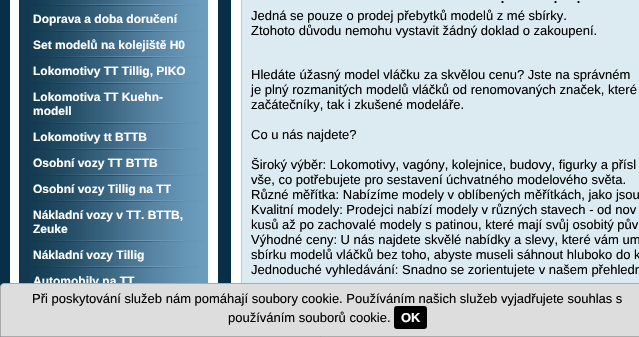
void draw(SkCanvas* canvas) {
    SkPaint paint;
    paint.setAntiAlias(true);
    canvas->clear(0xFF082F47);
    canvas->drawImageRect(SkImages::DeferredFromEncodedData(SkData::MakeFromFileName("img1.png")), SkRect::MakeXYWH(10, 0, 208, 283), SkSamplingOptions());
    canvas->drawImageRect(SkImages::DeferredFromEncodedData(SkData::MakeFromFileName("img2.png")), SkRect::MakeXYWH(28, 4, 175, 2), SkSamplingOptions());
    canvas->drawImageRect(SkImages::DeferredFromEncodedData(SkData::MakeFromFileName("img2.png")), SkRect::MakeXYWH(28, 30, 175, 2), SkSamplingOptions());
    SkFont font1(fontMgr->matchFamilyStyle("Liberation Sans", SkFontStyle::Bold()), 12);
    font1.setSubpixel(true);
    paint.setColor(0xFFFFFFFF);
    canvas->drawString("Doprava a doba doručení", 33, 23, font1, paint);
    canvas->drawImageRect(SkImages::DeferredFromEncodedData(SkData::MakeFromFileName("img2.png")), SkRect::MakeXYWH(28, 56, 175, 2), SkSamplingOptions());
    canvas->drawString("Set modelů na kolejiště H0", 33, 49, font1, paint);
    canvas->drawImageRect(SkImages::DeferredFromEncodedData(SkData::MakeFromFileName("img2.png")), SkRect::MakeXYWH(28, 82, 175, 2), SkSamplingOptions());
    canvas->drawString("Lokomotivy TT Tillig, PIKO", 33, 75, font1, paint);
    canvas->drawImageRect(SkImages::DeferredFromEncodedData(SkData::MakeFromFileName("img2.png")), SkRect::MakeXYWH(28, 122, 175, 2), SkSamplingOptions());
    canvas->drawString("Lokomotiva TT Kuehn-", 33, 101, font1, paint);
    canvas->drawString("modell", 33, 115, font1, paint);
    canvas->drawImageRect(SkImages::DeferredFromEncodedData(SkData::MakeFromFileName("img2.png")), SkRect::MakeXYWH(28, 148, 175, 2), SkSamplingOptions());
    canvas->drawString("Lokomotivy tt BTTB", 33, 141, font1, paint);
    canvas->drawImageRect(SkImages::DeferredFromEncodedData(SkData::MakeFromFileName("img2.png")), SkRect::MakeXYWH(28, 174, 175, 2), SkSamplingOptions());
    canvas->drawString("Osobní vozy TT BTTB", 33, 167, font1, paint);
    canvas->drawImageRect(SkImages::DeferredFromEncodedData(SkData::MakeFromFileName("img2.png")), SkRect::MakeXYWH(28, 200, 175, 2), SkSamplingOptions());
    canvas->drawString("Osobní vozy Tillig na TT", 33, 193, font1, paint);
    canvas->drawImageRect(SkImages::DeferredFromEncodedData(SkData::MakeFromFileName("img2.png")), SkRect::MakeXYWH(28, 240, 175, 2), SkSamplingOptions());
    canvas->drawString("Nákladní vozy v TT. BTTB,", 33, 219, font1, paint);
    canvas->drawString("Zeuke", 33, 233, font1, paint);
    canvas->drawImageRect(SkImages::DeferredFromEncodedData(SkData::MakeFromFileName("img2.png")), SkRect::MakeXYWH(28, 266, 175, 2), SkSamplingOptions());
    canvas->drawString("Nákladní vozy Tillig", 33, 259, font1, paint);
    canvas->drawString("Automobily na TT", 33, 285, font1, paint);
    canvas->drawImageRect(SkImages::DeferredFromEncodedData(SkData::MakeFromFileName("img3.png")), SkRect::MakeXYWH(231, 0, 408, 283), SkSamplingOptions());
    SkFont font2(fontMgr->matchFamilyStyle("Liberation Sans", SkFontStyle::Normal()), 18);
    font2.setSubpixel(true);
    paint.setColor(0xFF000000);
    canvas->drawString(".", 500, 3, font2, paint);
    canvas->drawString(".", 553, 3, font2, paint);
    canvas->drawString(".", 576, 3, font2, paint);
    SkFont font3(fontMgr->matchFamilyStyle("Liberation Sans", SkFontStyle::Normal()), 13);
    font3.setSubpixel(true);
    canvas->drawString("Jedná se pouze o prodej přebytků modelů z mé sbírky.", 251, 20, font3, paint);
    canvas->drawString("Ztohoto důvodu nemohu vystavit žádný doklad o zakoupení.", 251, 35, font3, paint);
    canvas->drawString("Hledáte úžasný model vláčku za skvělou cenu? Jste na správném", 251, 79, font3, paint);
    canvas->drawString("je plný rozmanitých modelů vláčků od renomovaných značek, které", 251, 94, font3, paint);
    canvas->drawString("začátečníky, tak i zkušené modeláře.", 251, 109, font3, paint);
    canvas->drawString("Co u nás najdete?", 251, 139, font3, paint);
    canvas->drawString("Široký výběr: Lokomotivy, vagóny, kolejnice, budovy, figurky a přísl", 251, 169, font3, paint);
    canvas->drawString("vše, co potřebujete pro sestavení úchvatného modelového světa.", 251, 184, font3, paint);
    canvas->drawString("Různé měřítka: Nabízíme modely v oblíbených měřítkách, jako jsou", 251, 199, font3, paint);
    canvas->drawString("Kvalitní modely: Prodejci nabízí modely v různých stavech - od nov", 251, 214, font3, paint);
    canvas->drawString("kusů až po zachovalé modely s patinou, které mají svůj osobitý pův", 251, 229, font3, paint);
    canvas->drawString("Výhodné ceny: U nás najdete skvělé nabídky a slevy, které vám um", 251, 244, font3, paint);
    canvas->drawString("sbírku modelů vláčků bez toho, abyste museli sáhnout hluboko do k", 251, 259, font3, paint);
    canvas->drawString("Jednoduché vyhledávání: Snadno se zorientujete v našem přehledn", 251, 274, font3, paint);
    paint.setColor(0xFFDDDDDD);
    canvas->drawPath(SkPathBuilder().moveTo(4, 283.5f).lineTo(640, 283.5f).cubicTo(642, 283.5f, 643.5f, 285, 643.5f, 287).lineTo(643.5f, 336.5f).lineTo(0.5f, 336.5f).lineTo(0.5f, 287).cubicTo(0.5f, 285, 2, 283.5f, 4, 283.5f).close().detach(), paint);
    paint.setStyle(SkPaint::kStroke_Style);
    paint.setStrokeWidth(1);
    paint.setColor(0xFFAAAAAA);
    canvas->drawPath(SkPathBuilder().moveTo(4, 283.5f).lineTo(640, 283.5f).cubicTo(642, 283.5f, 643.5f, 285, 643.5f, 287).lineTo(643.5f, 336.5f).lineTo(0.5f, 336.5f).lineTo(0.5f, 287).cubicTo(0.5f, 285, 2, 283.5f, 4, 283.5f).close().detach(), paint);
    paint.setStyle(SkPaint::kFill_Style);
    paint.setColor(0xFF000000);
    canvas->drawString("Při poskytování služeb nám pomáhají soubory cookie. Používáním našich služeb vyjadřujete souhlas s", 32, 303, font3, paint);
    canvas->drawString("používáním souborů cookie.", 228, 322, font3, paint);
    canvas->drawRoundRect(SkRect::MakeXYWH(394, 306, 33, 23), 3, 3, paint);
    SkFont font4(fontMgr->matchFamilyStyle("Liberation Sans", SkFontStyle::Bold()), 13);
    font4.setSubpixel(true);
    paint.setColor(0xFFFFFFFF);
    canvas->drawString("OK", 401, 322, font4, paint);
}
